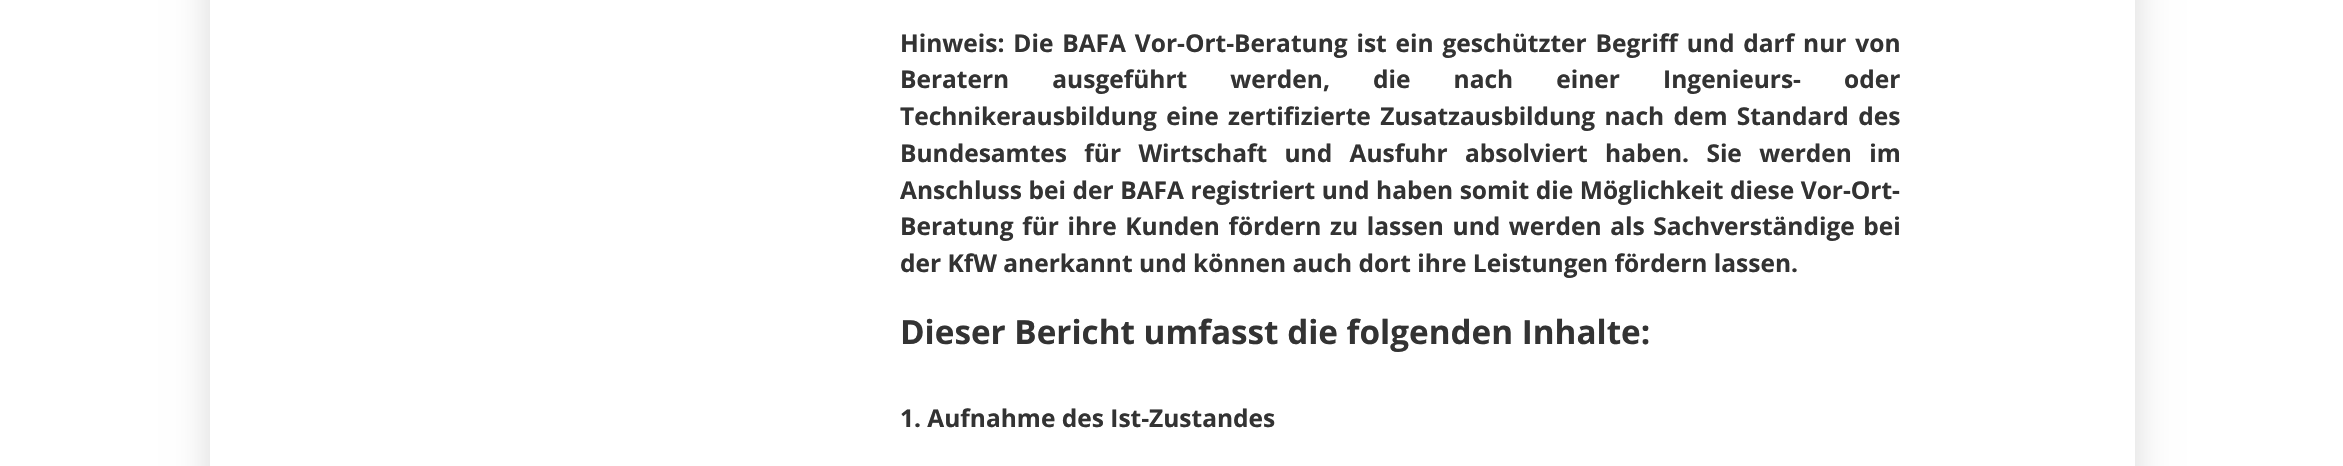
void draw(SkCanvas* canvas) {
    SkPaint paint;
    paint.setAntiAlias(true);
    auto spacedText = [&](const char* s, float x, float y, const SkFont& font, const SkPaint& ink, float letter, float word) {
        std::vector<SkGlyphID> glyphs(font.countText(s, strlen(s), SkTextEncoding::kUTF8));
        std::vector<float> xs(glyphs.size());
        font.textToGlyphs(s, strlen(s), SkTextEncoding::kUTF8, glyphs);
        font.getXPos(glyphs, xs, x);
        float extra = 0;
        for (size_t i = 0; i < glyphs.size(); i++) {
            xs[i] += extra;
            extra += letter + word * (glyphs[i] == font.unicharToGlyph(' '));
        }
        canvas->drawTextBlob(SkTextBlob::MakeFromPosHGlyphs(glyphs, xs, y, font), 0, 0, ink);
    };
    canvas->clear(0xFFFFFFFF);
    canvas->save();
    canvas->clipPath(SkPathBuilder(SkPathFillType::kEvenOdd).moveTo(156, 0).lineTo(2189, 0).lineTo(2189, 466).lineTo(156, 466).close().moveTo(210, -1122).lineTo(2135, -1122).lineTo(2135, 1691).lineTo(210, 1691).close().detach(), true);
    paint.setColor(0x26000000);
    paint.setMaskFilter(SkMaskFilter::MakeBlur(kNormal_SkBlurStyle, 17.5f));
    canvas->drawRect(SkRect::MakeXYWH(210, -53, 1925, 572), paint);
    paint.setMaskFilter(nullptr);
    canvas->restore();
    SkFont font1(fontMgr->matchFamilyStyle("Open Sans", SkFontStyle::Bold()), 24.5f);
    font1.setSubpixel(true);
    paint.setColor(0xFF333333);
    spacedText("Hinweis: Die BAFA Vor-Ort-Beratung ist ein geschützter Begriff und darf nur von", 900, 52, font1, paint, 0, 2.5f);
    spacedText("Beratern ausgeführt werden, die nach einer Ingenieurs- oder", 900, 88, font1, paint, 0, 36.75f);
    spacedText("Technikerausbildung eine zertifizierte Zusatzausbildung nach dem Standard des", 900, 125, font1, paint, 0, 3);
    spacedText("Bundesamtes für Wirtschaft und Ausfuhr absolviert haben. Sie werden im", 900, 162, font1, paint, 0, 11);
    spacedText("Anschluss bei der BAFA registriert und haben somit die Möglichkeit diese Vor-Ort-", 900, 199, font1, paint, 0, 0.25f);
    spacedText("Beratung für ihre Kunden fördern zu lassen und werden als Sachverständige bei", 900, 235, font1, paint, 0, 2.25f);
    canvas->drawString("der KfW anerkannt und können auch dort ihre Leistungen fördern lassen.", 900, 272, font1, paint);
    SkFont font2(fontMgr->matchFamilyStyle("Open Sans", SkFontStyle::Bold()), 33.25f);
    font2.setSubpixel(true);
    canvas->drawString("Dieser Bericht umfasst die folgenden Inhalte:", 900, 344, font2, paint);
    canvas->drawString("1. Aufnahme des Ist-Zustandes", 900, 427, font1, paint);
}
